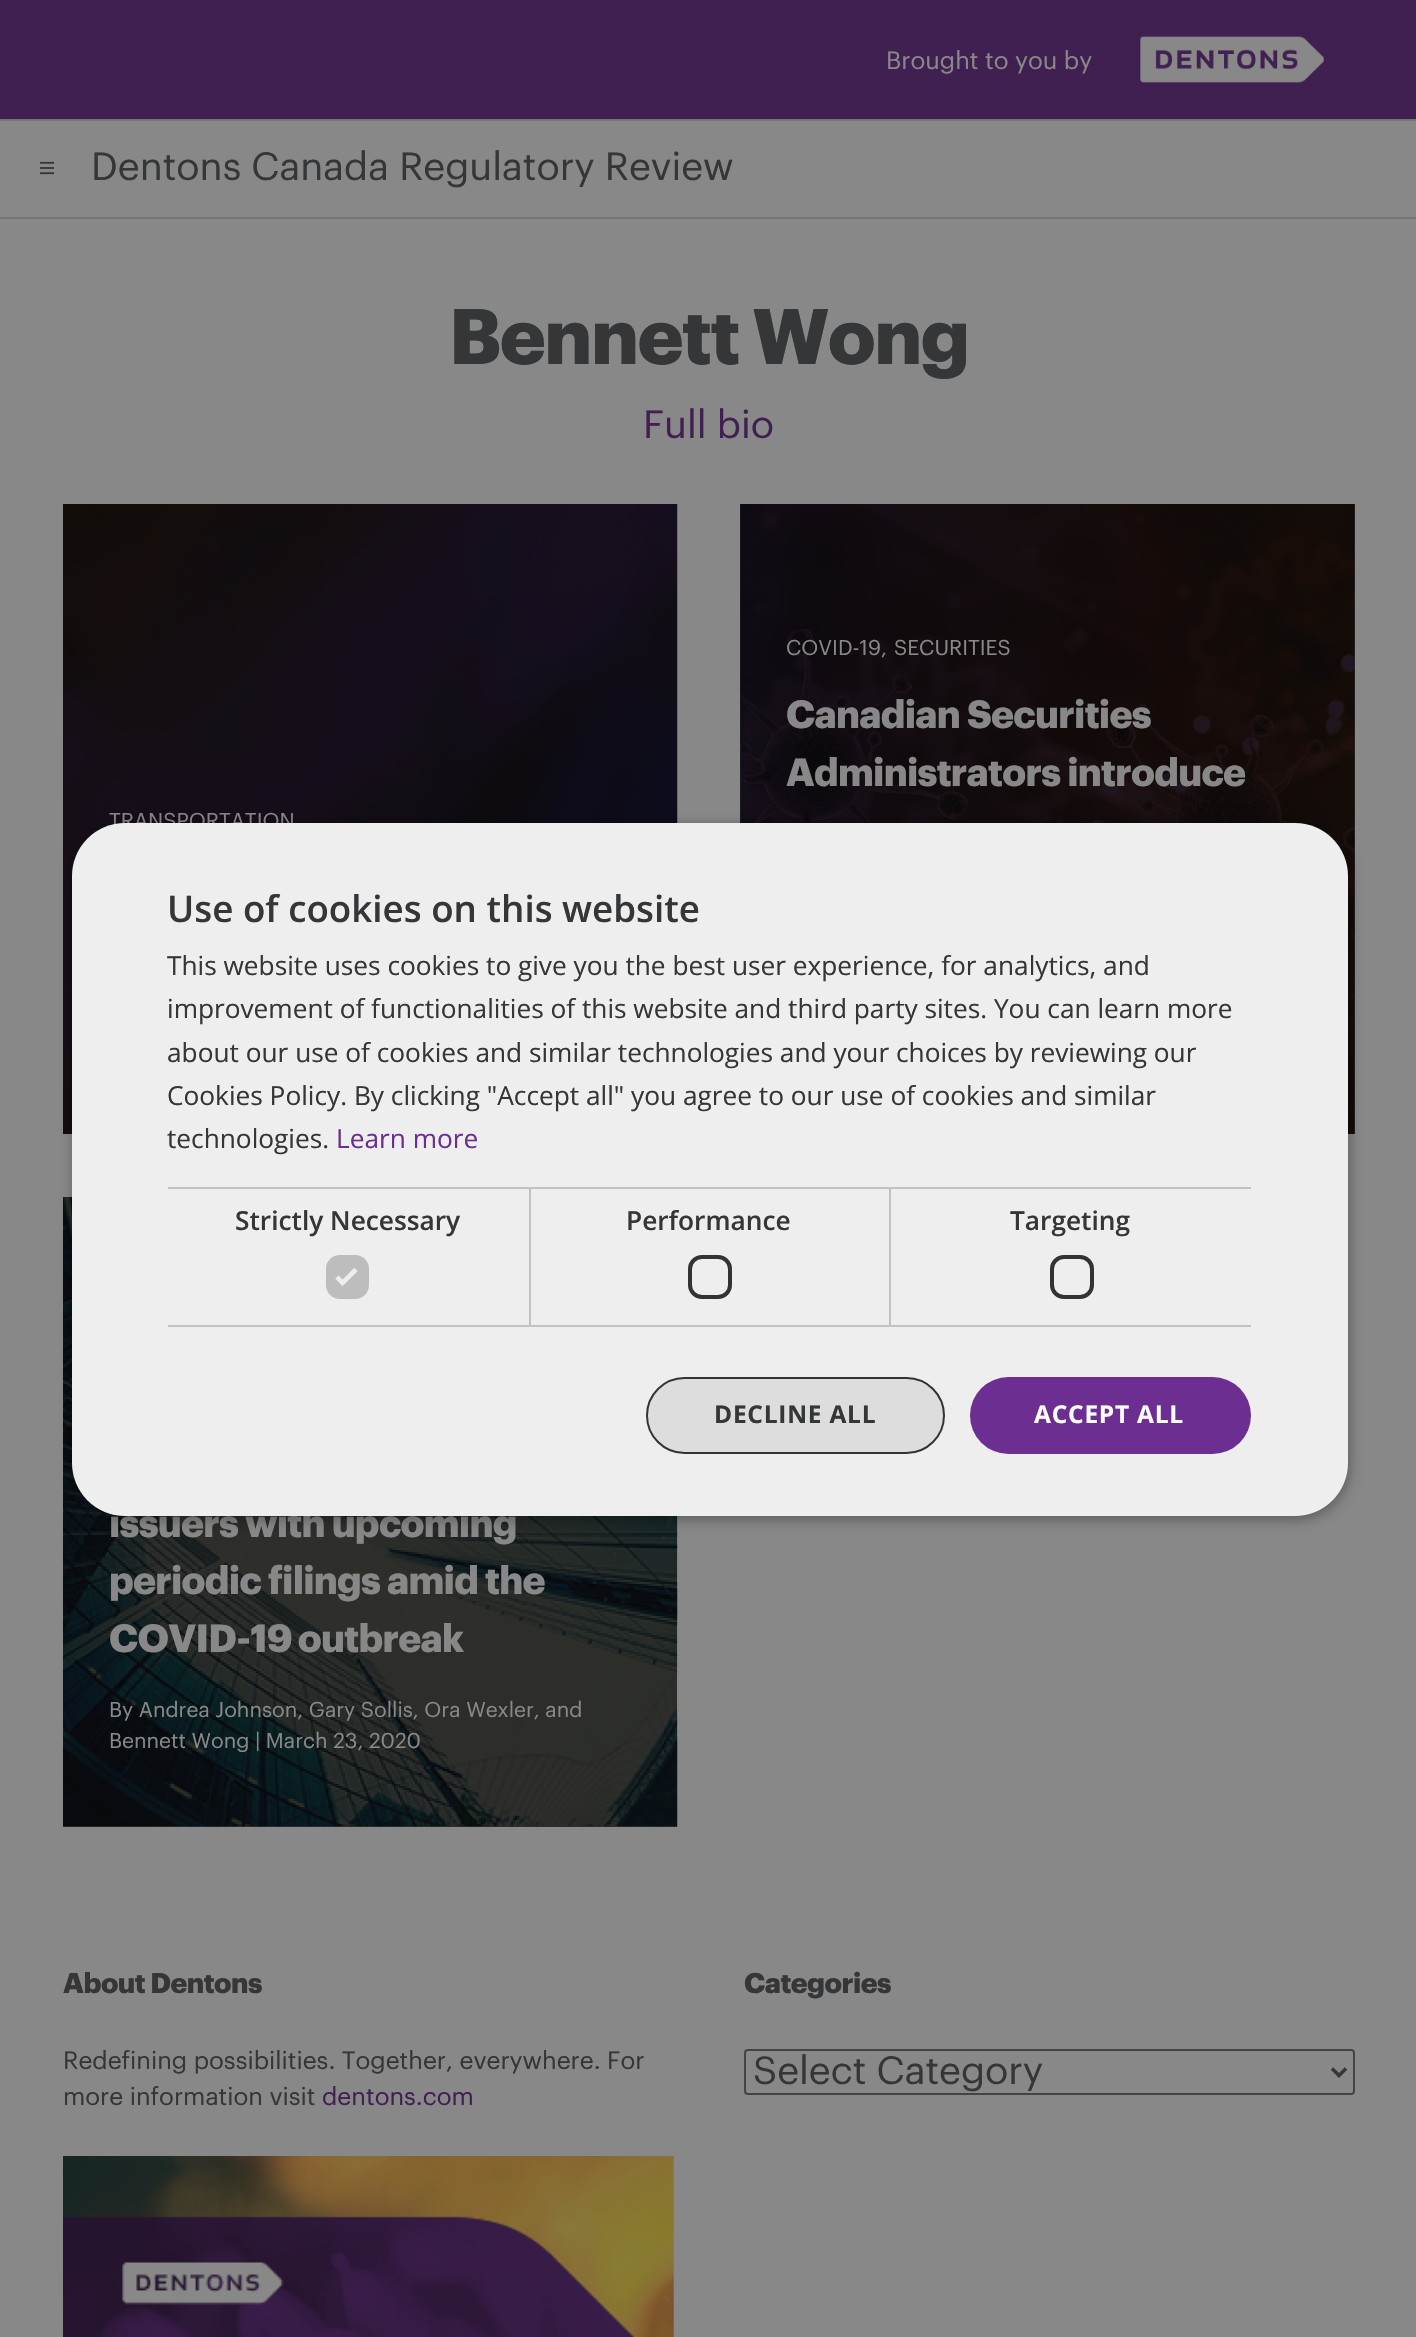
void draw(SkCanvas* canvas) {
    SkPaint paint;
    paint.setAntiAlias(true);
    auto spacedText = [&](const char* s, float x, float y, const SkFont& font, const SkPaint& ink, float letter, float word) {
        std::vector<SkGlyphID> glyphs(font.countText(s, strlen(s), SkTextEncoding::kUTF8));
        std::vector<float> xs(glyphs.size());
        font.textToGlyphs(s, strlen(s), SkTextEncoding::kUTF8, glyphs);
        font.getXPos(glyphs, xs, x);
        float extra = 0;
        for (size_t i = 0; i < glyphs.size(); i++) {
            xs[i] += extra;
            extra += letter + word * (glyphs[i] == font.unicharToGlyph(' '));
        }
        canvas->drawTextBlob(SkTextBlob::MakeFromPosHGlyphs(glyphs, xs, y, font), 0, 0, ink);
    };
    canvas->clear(0xFF888888);
    paint.setColor(0xFF2F2F2F);
    canvas->drawRect(SkRect::MakeXYWH(740, 504, 615, 630), paint);
    paint.setColor(0xFF401F51);
    canvas->drawRect(SkRect::MakeXYWH(0, 0, 1416, 119), paint);
    paint.setColor(0xFF757575);
    canvas->drawRect(SkRect::MakeXYWH(0, 119, 1416, 2), paint);
    SkFont font1(fontMgr->matchFamilyStyle("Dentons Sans", SkFontStyle::Normal()), 24.5f);
    font1.setSubpixel(true);
    paint.setColor(0xFF888888);
    canvas->drawString("Brought to you by", 886, 69, font1, paint);
    canvas->drawImageRect(SkImages::DeferredFromEncodedData(SkData::MakeFromFileName("img1.png")), SkRect::MakeXYWH(1140, 36, 184, 47), SkSamplingOptions());
    paint.setColor(0xFF757575);
    canvas->drawRect(SkRect::MakeXYWH(0, 217, 1416, 2), paint);
    canvas->drawImageRect(SkImages::DeferredFromEncodedData(SkData::MakeFromFileName("img2.png")), SkRect::MakeXYWH(40, 161, 14, 14), SkSamplingOptions());
    SkFont font2(fontMgr->matchFamilyStyle("Dentons Sans", SkFontStyle::Normal()), 38.5f);
    font2.setSubpixel(true);
    paint.setColor(0xFF343637);
    canvas->drawString("Dentons Canada Regulatory Review", 91, 180, font2, paint);
    SkFont font3(fontMgr->matchFamilyStyle("Dentons Sans", SkFontStyle::Bold()), 77);
    font3.setSubpixel(true);
    spacedText("Bennett Wong", 449, 364, font3, paint, -1.5f, 0);
    paint.setColor(0xFF401F51);
    canvas->drawString("Full bio", 643, 438, font2, paint);
    canvas->drawImageRect(SkImages::DeferredFromEncodedData(SkData::MakeFromFileName("img3.png")), SkRect::MakeXYWH(740, 504, 615, 630), SkSamplingOptions());
    SkFont font4(fontMgr->matchFamilyStyle("Dentons Sans", SkFontStyle::Normal()), 21);
    font4.setSubpixel(true);
    paint.setColor(0xFF888888);
    canvas->drawString("COVID-19", 786, 655, font4, paint);
    canvas->drawString(",", 881, 655, font4, paint);
    canvas->drawString("SECURITIES", 894, 655, font4, paint);
    SkFont font5(fontMgr->matchFamilyStyle("Dentons Sans", SkFontStyle::Bold()), 38.5f);
    font5.setSubpixel(true);
    spacedText("Canadian Securities", 786, 728, font5, paint, -0.75f, 0);
    spacedText("Administrators introduce", 786, 786, font5, paint, -0.75f, 0);
    canvas->drawImageRect(SkImages::DeferredFromEncodedData(SkData::MakeFromFileName("img4.png")), SkRect::MakeXYWH(63, 504, 615, 630), SkSamplingOptions());
    canvas->drawString("TRANSPORTATION", 109, 828, font4, paint);
    canvas->drawImageRect(SkImages::DeferredFromEncodedData(SkData::MakeFromFileName("img5.png")), SkRect::MakeXYWH(63, 1197, 615, 630), SkSamplingOptions());
    spacedText("issuers with upcoming", 109, 1537, font5, paint, -0.75f, 0);
    spacedText("periodic filings amid the", 109, 1594, font5, paint, -0.75f, 0);
    spacedText("COVID-19 outbreak", 109, 1652, font5, paint, -0.75f, -1);
    canvas->drawString("By Andrea Johnson, Gary Sollis, Ora Wexler, and", 109, 1717, font4, paint);
    canvas->drawString("Bennett Wong | March 23, 2020", 109, 1748, font4, paint);
    SkFont font6(fontMgr->matchFamilyStyle("Dentons Sans", SkFontStyle::Bold()), 28);
    font6.setSubpixel(true);
    paint.setColor(0xFF343637);
    spacedText("About Dentons", 63, 1993, font6, paint, -0.5f, 0);
    canvas->drawString("Redefining possibilities. Together, everywhere. For", 63, 2069, font1, paint);
    canvas->drawString("more information visit", 63, 2105, font1, paint);
    paint.setColor(0xFF401F51);
    canvas->drawString("dentons.com", 322, 2105, font1, paint);
    canvas->drawImageRect(SkImages::DeferredFromEncodedData(SkData::MakeFromFileName("img6.png")), SkRect::MakeXYWH(63, 2156, 611, 181), SkSamplingOptions());
    paint.setColor(0xFF343637);
    spacedText("Categories", 744, 1993, font6, paint, -0.5f, 0);
    paint.setStyle(SkPaint::kStroke_Style);
    paint.setStrokeWidth(2);
    paint.setColor(0xFF444444);
    canvas->drawRoundRect(SkRect::MakeXYWH(745, 2050, 609, 44), 3, 3, paint);
    paint.setStrokeWidth(3.5f);
    paint.setColor(0xFF343637);
    canvas->drawPath(SkPathBuilder().moveTo(1332, 2068.5f).lineTo(1339, 2075.5f).lineTo(1346, 2068.5f).detach(), paint);
    paint.setStyle(SkPaint::kFill_Style);
    canvas->drawString("Select Category", 753, 2084, font2, paint);
    paint.setColor(0x59000000);
    paint.setMaskFilter(SkMaskFilter::MakeBlur(kNormal_SkBlurStyle, 7));
    canvas->drawRoundRect(SkRect::MakeXYWH(74, 826, 1275, 693), 53, 53, paint);
    paint.setMaskFilter(nullptr);
    paint.setColor(0xFFEEEEEE);
    canvas->drawRoundRect(SkRect::MakeXYWH(72, 823, 1276, 693), 53, 53, paint);
    SkFont font7(fontMgr->matchFamilyStyle("Open Sans", SkFontStyle(600, SkFontStyle::kNormal_Width, SkFontStyle::kUpright_Slant)), 36.75f);
    font7.setSubpixel(true);
    paint.setColor(0xFF343637);
    canvas->drawString("Use of cookies on this website", 167, 922, font7, paint);
    SkFont font8(fontMgr->matchFamilyStyle("Open Sans", SkFontStyle::Normal()), 26.25f);
    font8.setSubpixel(true);
    canvas->drawString("This website uses cookies to give you the best user experience, for analytics, and", 167, 975, font8, paint);
    canvas->drawString("improvement of functionalities of this website and third party sites. You can learn more", 167, 1018, font8, paint);
    canvas->drawString("about our use of cookies and similar technologies and your choices by reviewing our", 167, 1062, font8, paint);
    canvas->drawString("Cookies Policy. By clicking \"Accept all\" you agree to our use of cookies and similar", 167, 1105, font8, paint);
    canvas->drawString("technologies.", 167, 1148, font8, paint);
    paint.setColor(0xFF6D2E91);
    canvas->drawString("Learn more", 336, 1148, font8, paint);
    paint.setColor(0xFFC2C2C2);
    canvas->drawRect(SkRect::MakeXYWH(168, 1187, 362, 2), paint);
    canvas->drawRect(SkRect::MakeXYWH(529, 1187, 2, 140), paint);
    canvas->drawRect(SkRect::MakeXYWH(168, 1325, 362, 2), paint);
    SkFont font9(fontMgr->matchFamilyStyle("Open Sans", SkFontStyle(600, SkFontStyle::kNormal_Width, SkFontStyle::kUpright_Slant)), 26.25f);
    font9.setSubpixel(true);
    paint.setColor(0xFF343637);
    canvas->drawString("Strictly Necessary", 235, 1230, font9, paint);
    paint.setColor(0xFFBDBDBD);
    canvas->drawRoundRect(SkRect::MakeXYWH(326, 1255, 43, 44), 14, 14, paint);
    paint.setStyle(SkPaint::kStroke_Style);
    paint.setStrokeWidth(4.6f);
    paint.setColor(0xFFEEEEEE);
    canvas->drawPath(SkPathBuilder().moveTo(337, 1277).lineTo(342.5f, 1283).lineTo(356, 1269.5f).detach(), paint);
    paint.setStyle(SkPaint::kFill_Style);
    paint.setColor(0xFFC2C2C2);
    canvas->drawRect(SkRect::MakeXYWH(530, 1187, 721, 2), paint);
    canvas->drawRect(SkRect::MakeXYWH(889, 1187, 2, 140), paint);
    canvas->drawRect(SkRect::MakeXYWH(530, 1325, 721, 2), paint);
    paint.setColor(0xFF343637);
    canvas->drawString("Performance", 626, 1230, font9, paint);
    paint.setStyle(SkPaint::kStroke_Style);
    paint.setStrokeWidth(4);
    paint.setColor(0xFF333333);
    canvas->drawRoundRect(SkRect::MakeXYWH(690, 1257, 40, 40), 12, 12, paint);
    paint.setStyle(SkPaint::kFill_Style);
    paint.setColor(0xFF343637);
    canvas->drawString("Targeting", 1010, 1230, font9, paint);
    paint.setStyle(SkPaint::kStroke_Style);
    paint.setColor(0xFF333333);
    canvas->drawRoundRect(SkRect::MakeXYWH(1052, 1257, 40, 40), 12, 12, paint);
    paint.setStyle(SkPaint::kFill_Style);
    paint.setColor(0xFFDDDDDD);
    canvas->drawRoundRect(SkRect::MakeXYWH(647, 1378, 297, 75), 37.5f, 37.5f, paint);
    paint.setStyle(SkPaint::kStroke_Style);
    paint.setStrokeWidth(2);
    paint.setColor(0xFF333333);
    canvas->drawRoundRect(SkRect::MakeXYWH(647, 1378, 297, 75), 37.5f, 37.5f, paint);
    SkFont font10(fontMgr->matchFamilyStyle("Open Sans", SkFontStyle::Bold()), 24.5f);
    font10.setSubpixel(true);
    paint.setStyle(SkPaint::kFill_Style);
    paint.setColor(0xFF343637);
    spacedText("DECLINE ALL", 714, 1423, font10, paint, 0.75f, 0);
    paint.setColor(0xFF6D2E91);
    canvas->drawRoundRect(SkRect::MakeXYWH(970, 1377, 281, 77), 38.5f, 38.5f, paint);
    paint.setColor(0xFFFFFFFF);
    spacedText("ACCEPT ALL", 1034, 1423, font10, paint, 0.75f, 0);
}
